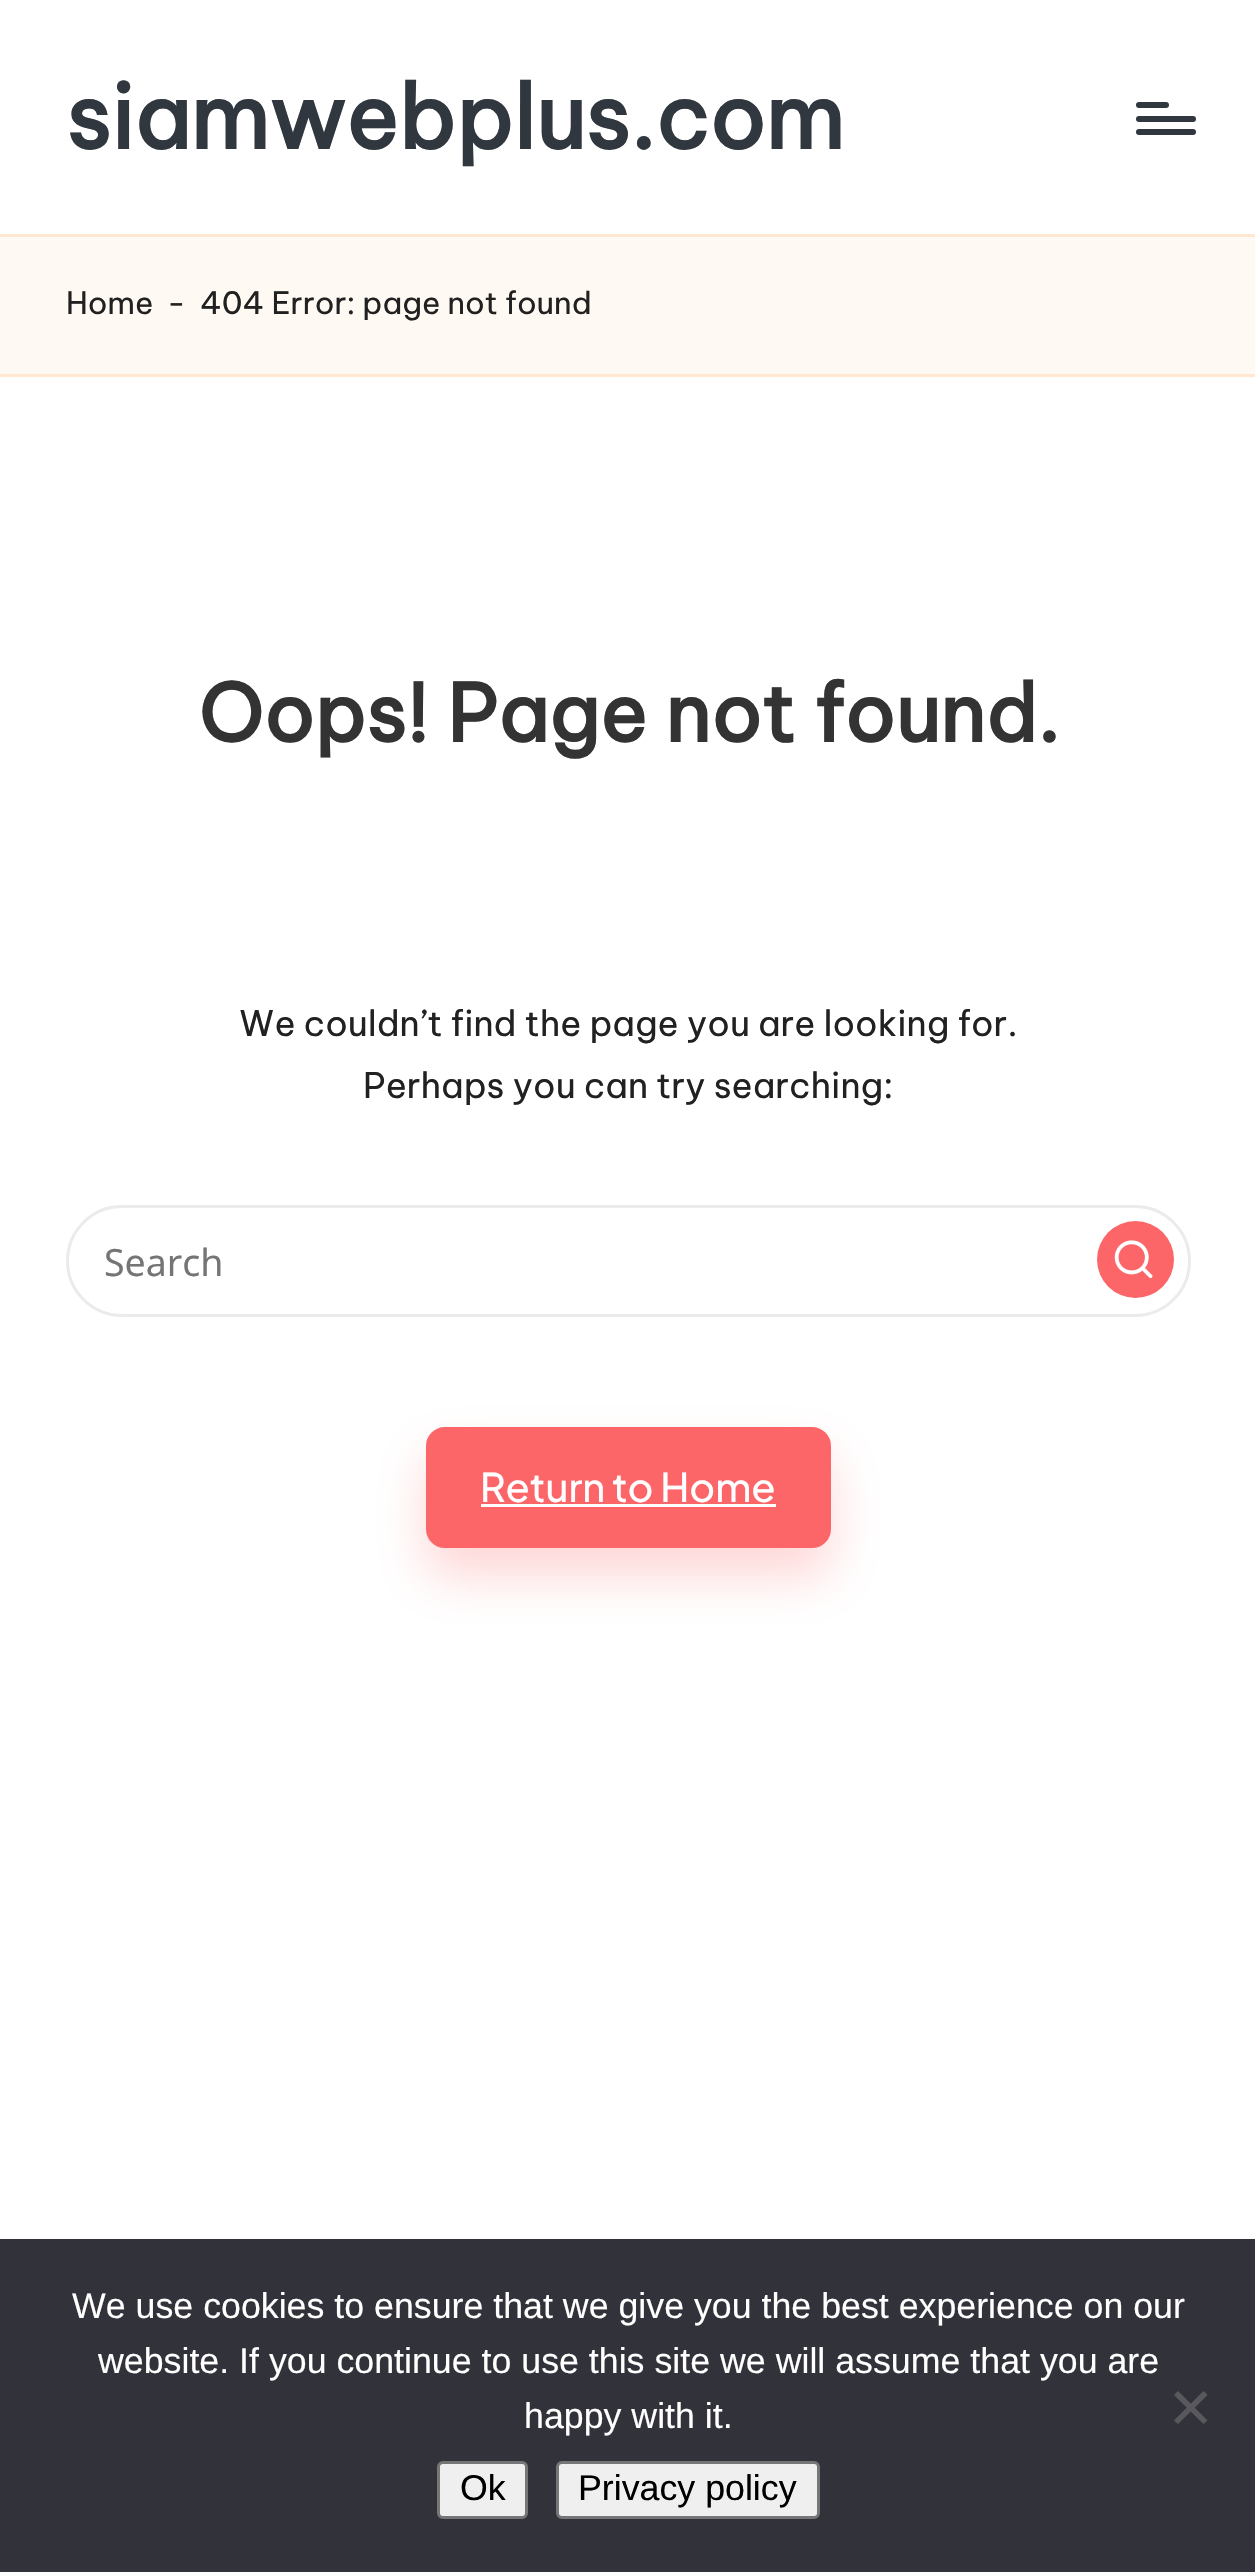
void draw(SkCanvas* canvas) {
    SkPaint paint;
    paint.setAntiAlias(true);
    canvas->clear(0xFFFFFFFF);
    SkFont font1(fontMgr->matchFamilyStyle("Be Vietnam Pro", SkFontStyle::Bold()), 88);
    font1.setSubpixel(true);
    paint.setColor(0xFF30373E);
    canvas->drawString("siamwebplus.com", 66, 149, font1, paint);
    canvas->drawRoundRect(SkRect::MakeXYWH(1136, 116, 60, 6), 3, 3, paint);
    canvas->drawRoundRect(SkRect::MakeXYWH(1136, 102, 33, 6), 3, 3, paint);
    canvas->drawRoundRect(SkRect::MakeXYWH(1136, 129, 60, 6), 3, 3, paint);
    paint.setColor(0xFFFFF9F3);
    canvas->drawRect(SkRect::MakeXYWH(0, 237, 1255, 137), paint);
    paint.setColor(0xFFFFE7D2);
    canvas->drawRect(SkRect::MakeXYWH(0, 234, 1255, 3), paint);
    canvas->drawRect(SkRect::MakeXYWH(0, 374, 1255, 3), paint);
    SkFont font2(fontMgr->matchFamilyStyle("Be Vietnam Pro", SkFontStyle::Normal()), 30.75f);
    font2.setSubpixel(true);
    paint.setColor(0xFF212121);
    canvas->drawString("Home", 66, 314, font2, paint);
    canvas->drawString("-", 167, 314, font2, paint);
    canvas->drawString("404 Error: page not found", 200, 314, font2, paint);
    SkFont font3(fontMgr->matchFamilyStyle("Be Vietnam Pro", SkFontStyle::Bold()), 79.25f);
    font3.setSubpixel(true);
    paint.setColor(0xFF333333);
    canvas->drawString("Oops! Page not found.", 198, 742, font3, paint);
    SkFont font4(fontMgr->matchFamilyStyle("Be Vietnam Pro", SkFontStyle::Normal()), 35.2f);
    font4.setSubpixel(true);
    paint.setColor(0xFF212121);
    canvas->drawString("We couldn’t find the page you are looking for.", 239, 1036, font4, paint);
    canvas->drawString("Perhaps you can try searching:", 363, 1098, font4, paint);
    paint.setStyle(SkPaint::kStroke_Style);
    paint.setStrokeWidth(3);
    paint.setColor(0xFFEBEBEB);
    canvas->drawRoundRect(SkRect::MakeXYWH(67.5f, 1206.5f, 1122, 109), 54.5f, 54.5f, paint);
    SkFont font5(fontMgr->matchFamilyStyle("Noto Sans", SkFontStyle::Normal()), 37.5f);
    font5.setSubpixel(true);
    paint.setStyle(SkPaint::kFill_Style);
    paint.setColor(0xFF757575);
    canvas->drawString("Search", 104, 1276, font5, paint);
    paint.setColor(0xFFFC6668);
    canvas->drawCircle(1135.5f, 1259.5f, 38.5f, paint);
    canvas->drawImageRect(SkImages::DeferredFromEncodedData(SkData::MakeFromFileName("img1.png")), SkRect::MakeXYWH(1114, 1240, 39, 39), SkSamplingOptions());
    paint.setColor(0x45FC6668);
    paint.setMaskFilter(SkMaskFilter::MakeBlur(kNormal_SkBlurStyle, 25));
    canvas->drawRoundRect(SkRect::MakeXYWH(426, 1455, 405, 121), 19, 19, paint);
    paint.setMaskFilter(nullptr);
    paint.setColor(0xFFFC6668);
    canvas->drawRoundRect(SkRect::MakeXYWH(427.5f, 1428.5f, 402, 118), 17.5f, 17.5f, paint);
    paint.setStyle(SkPaint::kStroke_Style);
    canvas->drawRoundRect(SkRect::MakeXYWH(427.5f, 1428.5f, 402, 118), 17.5f, 17.5f, paint);
    SkFont font6(fontMgr->matchFamilyStyle("Plus Jakarta Sans", SkFontStyle(500, SkFontStyle::kNormal_Width, SkFontStyle::kUpright_Slant)), 39.5f);
    font6.setSubpixel(true);
    paint.setStyle(SkPaint::kFill_Style);
    paint.setColor(0xFFFFFFFF);
    canvas->drawString("Return to Home", 480, 1502, font6, paint);
    canvas->drawRect(SkRect::MakeXYWH(481, 1504, 295, 3), paint);
    paint.setColor(0xFF32323A);
    canvas->drawRect(SkRect::MakeXYWH(0, 2239, 1255, 333), paint);
    SkFont font7(fontMgr->matchFamilyStyle("Liberation Sans", SkFontStyle::Normal()), 35.75f);
    font7.setSubpixel(true);
    paint.setColor(0xFFFFFFFF);
    canvas->drawString("We use cookies to ensure that we give you the best experience on our", 72, 2318, font7, paint);
    canvas->drawString("website. If you continue to use this site we will assume that you are", 98, 2373, font7, paint);
    canvas->drawString("happy with it.", 524, 2428, font7, paint);
    paint.setColor(0xFF59595D);
    canvas->drawPath(SkPathBuilder().moveTo(1203.5f, 2391).lineTo(1207.5f, 2395).lineTo(1178, 2424).lineTo(1174, 2420.5f).close().detach(), paint);
    canvas->drawPath(SkPathBuilder().moveTo(1174, 2395).lineTo(1178, 2391).lineTo(1207.5f, 2420.5f).lineTo(1203.5f, 2424).close().detach(), paint);
    paint.setColor(0xFFEFEFEF);
    canvas->drawRoundRect(SkRect::MakeXYWH(438.5f, 2462.5f, 88, 55), 4.5f, 4.5f, paint);
    paint.setStyle(SkPaint::kStroke_Style);
    paint.setColor(0xFF767676);
    canvas->drawRoundRect(SkRect::MakeXYWH(438.5f, 2462.5f, 88, 55), 4.5f, 4.5f, paint);
    paint.setStyle(SkPaint::kFill_Style);
    paint.setColor(0xFF000000);
    canvas->drawString("Ok", 460, 2500, font7, paint);
    paint.setColor(0xFFEFEFEF);
    canvas->drawRoundRect(SkRect::MakeXYWH(557.5f, 2462.5f, 261, 55), 4.5f, 4.5f, paint);
    paint.setStyle(SkPaint::kStroke_Style);
    paint.setColor(0xFF767676);
    canvas->drawRoundRect(SkRect::MakeXYWH(557.5f, 2462.5f, 261, 55), 4.5f, 4.5f, paint);
    paint.setStyle(SkPaint::kFill_Style);
    paint.setColor(0xFF000000);
    canvas->drawString("Privacy policy", 578, 2500, font7, paint);
}
